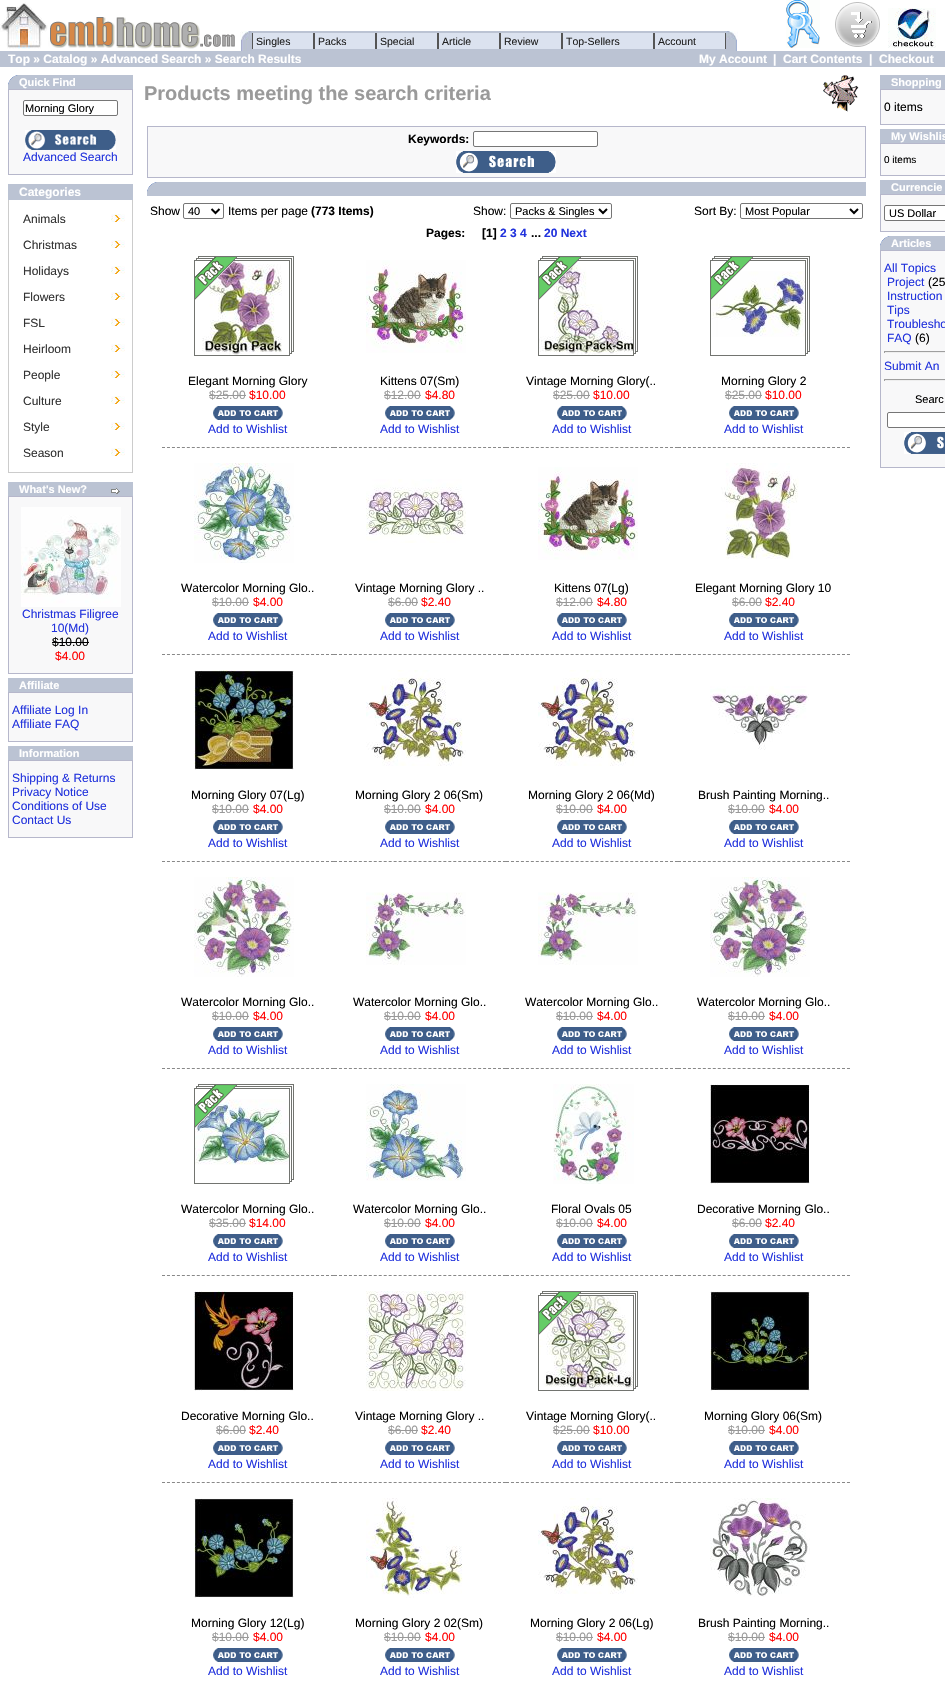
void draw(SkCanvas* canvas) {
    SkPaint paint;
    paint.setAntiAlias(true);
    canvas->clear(0xFFFFFFFF);
    canvas->drawImageRect(SkImages::DeferredFromEncodedData(SkData::MakeFromFileName("img1.png")), SkRect::MakeXYWH(0, 2, 235, 47), SkSamplingOptions());
    canvas->drawImageRect(SkImages::DeferredFromEncodedData(SkData::MakeFromFileName("img2.png")), SkRect::MakeXYWH(240, 31, 12, 20), SkSamplingOptions());
    paint.setColor(0xFFBBC3D3);
    canvas->drawRect(SkRect::MakeXYWH(252, 31, 474, 20), paint);
    paint.setColor(0xFFDBE2EF);
    canvas->drawRect(SkRect::MakeXYWH(253, 33, 60, 16), paint);
    paint.setColor(0xFF555555);
    canvas->drawRect(SkRect::MakeXYWH(313, 33, 2, 16), paint);
    canvas->drawRect(SkRect::MakeXYWH(252, 33, 1, 16), paint);
    SkFont font1(fontMgr->matchFamilyStyle("Liberation Sans", SkFontStyle::Normal()), 10.5f);
    font1.setSubpixel(true);
    paint.setColor(0xFF222222);
    canvas->drawString("Singles", 256, 45, font1, paint);
    paint.setColor(0xFFDBE2EF);
    canvas->drawRect(SkRect::MakeXYWH(315, 33, 60, 16), paint);
    paint.setColor(0xFF555555);
    canvas->drawRect(SkRect::MakeXYWH(375, 33, 2, 16), paint);
    paint.setColor(0xFF222222);
    canvas->drawString("Packs", 318, 45, font1, paint);
    paint.setColor(0xFFDBE2EF);
    canvas->drawRect(SkRect::MakeXYWH(377, 33, 60, 16), paint);
    paint.setColor(0xFF555555);
    canvas->drawRect(SkRect::MakeXYWH(437, 33, 2, 16), paint);
    paint.setColor(0xFF222222);
    canvas->drawString("Special", 380, 45, font1, paint);
    paint.setColor(0xFFDBE2EF);
    canvas->drawRect(SkRect::MakeXYWH(439, 33, 60, 16), paint);
    paint.setColor(0xFF555555);
    canvas->drawRect(SkRect::MakeXYWH(499, 33, 2, 16), paint);
    paint.setColor(0xFF222222);
    canvas->drawString("Article", 442, 45, font1, paint);
    paint.setColor(0xFFDBE2EF);
    canvas->drawRect(SkRect::MakeXYWH(501, 33, 60, 16), paint);
    paint.setColor(0xFF555555);
    canvas->drawRect(SkRect::MakeXYWH(561, 33, 2, 16), paint);
    paint.setColor(0xFF222222);
    canvas->drawString("Review", 504, 45, font1, paint);
    paint.setColor(0xFFDBE2EF);
    canvas->drawRect(SkRect::MakeXYWH(563, 33, 90, 16), paint);
    paint.setColor(0xFF555555);
    canvas->drawRect(SkRect::MakeXYWH(653, 33, 2, 16), paint);
    paint.setColor(0xFF222222);
    canvas->drawString("Top-Sellers", 566, 45, font1, paint);
    paint.setColor(0xFFDBE2EF);
    canvas->drawRect(SkRect::MakeXYWH(655, 33, 70, 16), paint);
    paint.setColor(0xFF555555);
    canvas->drawRect(SkRect::MakeXYWH(725, 33, 1, 16), paint);
    paint.setColor(0xFF222222);
    canvas->drawString("Account", 658, 45, font1, paint);
    canvas->drawImageRect(SkImages::DeferredFromEncodedData(SkData::MakeFromFileName("img3.png")), SkRect::MakeXYWH(726, 31, 12, 20), SkSamplingOptions());
    canvas->drawImageRect(SkImages::DeferredFromEncodedData(SkData::MakeFromFileName("img4.png")), SkRect::MakeXYWH(786, 0, 34, 48), SkSamplingOptions());
    canvas->drawImageRect(SkImages::DeferredFromEncodedData(SkData::MakeFromFileName("img5.png")), SkRect::MakeXYWH(835, 2, 45, 45), SkSamplingOptions());
    canvas->drawImageRect(SkImages::DeferredFromEncodedData(SkData::MakeFromFileName("img6.png")), SkRect::MakeXYWH(888, 8, 48, 40), SkSamplingOptions());
    paint.setColor(0xFFBBC3D3);
    canvas->drawRect(SkRect::MakeXYWH(0, 51, 945, 16), paint);
    SkFont font2(fontMgr->matchFamilyStyle("Liberation Sans", SkFontStyle::Bold()), 12);
    font2.setSubpixel(true);
    paint.setColor(0xFFFFFFFF);
    canvas->drawString("Top » Catalog » Advanced Search » Search Results", 8, 63, font2, paint);
    canvas->drawString("My Account", 699, 63, font2, paint);
    canvas->drawString("|", 773, 63, font2, paint);
    canvas->drawString("Cart Contents", 783, 63, font2, paint);
    canvas->drawString("|", 869, 63, font2, paint);
    canvas->drawString("Checkout", 879, 63, font2, paint);
    paint.setColor(0xFFBBC3D3);
    canvas->drawRect(SkRect::MakeXYWH(8, 75, 125, 14), paint);
    canvas->drawImageRect(SkImages::DeferredFromEncodedData(SkData::MakeFromFileName("img7.png")), SkRect::MakeXYWH(8, 75, 10, 10), SkSamplingOptions());
    SkFont font3(fontMgr->matchFamilyStyle("Liberation Sans", SkFontStyle::Bold()), 11);
    font3.setSubpixel(true);
    paint.setColor(0xFFFFFFFF);
    canvas->drawString("Quick Find", 19, 86, font3, paint);
    paint.setColor(0xFFB6B7CB);
    canvas->drawRect(SkRect::MakeXYWH(8, 89, 125, 86), paint);
    paint.setColor(0xFFF8F8F9);
    canvas->drawRect(SkRect::MakeXYWH(9, 90, 123, 84), paint);
    paint.setColor(0xFFFFFFFF);
    canvas->drawRoundRect(SkRect::MakeXYWH(23.5f, 100.5f, 94, 15), 1.5f, 1.5f, paint);
    paint.setStyle(SkPaint::kStroke_Style);
    paint.setStrokeWidth(1);
    paint.setColor(0xFF767676);
    canvas->drawRoundRect(SkRect::MakeXYWH(23.5f, 100.5f, 94, 15), 1.5f, 1.5f, paint);
    canvas->save();
    canvas->clipRect(SkRect::MakeXYWH(25, 102, 91, 12));
    SkFont font4(fontMgr->matchFamilyStyle("Liberation Sans", SkFontStyle::Normal()), 11);
    font4.setSubpixel(true);
    paint.setStyle(SkPaint::kFill_Style);
    paint.setColor(0xFF000000);
    canvas->drawString("Morning Glory", 25, 112, font4, paint);
    canvas->restore();
    canvas->drawImageRect(SkImages::DeferredFromEncodedData(SkData::MakeFromFileName("img8.png")), SkRect::MakeXYWH(25, 130, 91, 20), SkSamplingOptions());
    SkFont font5(fontMgr->matchFamilyStyle("Liberation Sans", SkFontStyle::Normal()), 12);
    font5.setSubpixel(true);
    paint.setColor(0xFF2233DD);
    canvas->drawString("Advanced Search", 23, 161, font5, paint);
    paint.setColor(0xFFBBC3D3);
    canvas->drawRect(SkRect::MakeXYWH(8, 184, 125, 16), paint);
    paint.setColor(0xFFFFFFFF);
    canvas->drawString("Categories", 19, 196, font2, paint);
    paint.setColor(0xFFCCCCCC);
    canvas->drawRect(SkRect::MakeXYWH(132, 200, 1, 273), paint);
    canvas->drawRect(SkRect::MakeXYWH(8, 472, 125, 1), paint);
    canvas->drawRect(SkRect::MakeXYWH(8, 200, 1, 273), paint);
    canvas->drawImageRect(SkImages::DeferredFromEncodedData(SkData::MakeFromFileName("img9.png")), SkRect::MakeXYWH(111, 214, 14, 8), SkSamplingOptions());
    paint.setColor(0xFF333333);
    canvas->drawString("Animals", 23, 223, font5, paint);
    canvas->drawImageRect(SkImages::DeferredFromEncodedData(SkData::MakeFromFileName("img9.png")), SkRect::MakeXYWH(111, 240, 14, 8), SkSamplingOptions());
    canvas->drawString("Christmas", 23, 249, font5, paint);
    canvas->drawImageRect(SkImages::DeferredFromEncodedData(SkData::MakeFromFileName("img9.png")), SkRect::MakeXYWH(111, 266, 14, 8), SkSamplingOptions());
    canvas->drawString("Holidays", 23, 275, font5, paint);
    canvas->drawImageRect(SkImages::DeferredFromEncodedData(SkData::MakeFromFileName("img9.png")), SkRect::MakeXYWH(111, 292, 14, 8), SkSamplingOptions());
    canvas->drawString("Flowers", 23, 301, font5, paint);
    canvas->drawImageRect(SkImages::DeferredFromEncodedData(SkData::MakeFromFileName("img9.png")), SkRect::MakeXYWH(111, 318, 14, 8), SkSamplingOptions());
    canvas->drawString("FSL", 23, 327, font5, paint);
    canvas->drawImageRect(SkImages::DeferredFromEncodedData(SkData::MakeFromFileName("img9.png")), SkRect::MakeXYWH(111, 344, 14, 8), SkSamplingOptions());
    canvas->drawString("Heirloom", 23, 353, font5, paint);
    canvas->drawImageRect(SkImages::DeferredFromEncodedData(SkData::MakeFromFileName("img9.png")), SkRect::MakeXYWH(111, 370, 14, 8), SkSamplingOptions());
    canvas->drawString("People", 23, 379, font5, paint);
    canvas->drawImageRect(SkImages::DeferredFromEncodedData(SkData::MakeFromFileName("img9.png")), SkRect::MakeXYWH(111, 396, 14, 8), SkSamplingOptions());
    canvas->drawString("Culture", 23, 405, font5, paint);
    canvas->drawImageRect(SkImages::DeferredFromEncodedData(SkData::MakeFromFileName("img9.png")), SkRect::MakeXYWH(111, 422, 14, 8), SkSamplingOptions());
    canvas->drawString("Style", 23, 431, font5, paint);
    canvas->drawImageRect(SkImages::DeferredFromEncodedData(SkData::MakeFromFileName("img9.png")), SkRect::MakeXYWH(111, 448, 14, 8), SkSamplingOptions());
    canvas->drawString("Season", 23, 457, font5, paint);
    paint.setColor(0xFFBBC3D3);
    canvas->drawRect(SkRect::MakeXYWH(8, 482, 125, 14), paint);
    paint.setColor(0xFFFFFFFF);
    canvas->drawString("What's New?", 19, 493, font3, paint);
    canvas->drawImageRect(SkImages::DeferredFromEncodedData(SkData::MakeFromFileName("img10.png")), SkRect::MakeXYWH(111, 488, 9, 6), SkSamplingOptions());
    paint.setColor(0xFFB6B7CB);
    canvas->drawRect(SkRect::MakeXYWH(8, 496, 125, 178), paint);
    paint.setColor(0xFFF8F8F9);
    canvas->drawRect(SkRect::MakeXYWH(9, 497, 123, 176), paint);
    canvas->drawImageRect(SkImages::DeferredFromEncodedData(SkData::MakeFromFileName("img11.png")), SkRect::MakeXYWH(21, 507, 100, 100), SkSamplingOptions());
    paint.setColor(0xFF2233DD);
    canvas->drawString("Christmas Filigree", 22, 618, font5, paint);
    canvas->drawString("10(Md)", 51, 632, font5, paint);
    paint.setColor(0xFF000000);
    canvas->drawString("$10.00", 52, 646, font5, paint);
    canvas->drawRect(SkRect::MakeXYWH(52, 642, 37, 1), paint);
    paint.setColor(0xFFFF0000);
    canvas->drawString("$4.00", 55, 660, font5, paint);
    paint.setColor(0xFFBBC3D3);
    canvas->drawRect(SkRect::MakeXYWH(8, 678, 125, 14), paint);
    paint.setColor(0xFFFFFFFF);
    canvas->drawString("Affiliate", 19, 689, font3, paint);
    paint.setColor(0xFFB6B7CB);
    canvas->drawRect(SkRect::MakeXYWH(8, 692, 125, 50), paint);
    paint.setColor(0xFFF8F8F9);
    canvas->drawRect(SkRect::MakeXYWH(9, 693, 123, 48), paint);
    paint.setColor(0xFF2233DD);
    canvas->drawString("Affiliate Log In", 12, 714, font5, paint);
    canvas->drawString("Affiliate FAQ", 12, 728, font5, paint);
    paint.setColor(0xFFBBC3D3);
    canvas->drawRect(SkRect::MakeXYWH(8, 746, 125, 14), paint);
    paint.setColor(0xFFFFFFFF);
    canvas->drawString("Information", 19, 757, font3, paint);
    paint.setColor(0xFFB6B7CB);
    canvas->drawRect(SkRect::MakeXYWH(8, 760, 125, 78), paint);
    paint.setColor(0xFFF8F8F9);
    canvas->drawRect(SkRect::MakeXYWH(9, 761, 123, 76), paint);
    paint.setColor(0xFF2233DD);
    canvas->drawString("Shipping & Returns", 12, 782, font5, paint);
    canvas->drawString("Privacy Notice", 12, 796, font5, paint);
    canvas->drawString("Conditions of Use", 12, 810, font5, paint);
    canvas->drawString("Contact Us", 12, 824, font5, paint);
    SkFont font6(fontMgr->matchFamilyStyle("Liberation Sans", SkFontStyle::Bold()), 20);
    font6.setSubpixel(true);
    paint.setColor(0xFF9A9A9A);
    canvas->drawString("Products meeting the search criteria", 144, 100, font6, paint);
    canvas->drawImageRect(SkImages::DeferredFromEncodedData(SkData::MakeFromFileName("img12.png")), SkRect::MakeXYWH(823, 75, 36, 37), SkSamplingOptions());
    paint.setColor(0xFFB6B7CB);
    canvas->drawRect(SkRect::MakeXYWH(147, 126, 719, 52), paint);
    paint.setColor(0xFFF8F8F9);
    canvas->drawRect(SkRect::MakeXYWH(148, 127, 717, 50), paint);
    paint.setColor(0xFF000000);
    canvas->drawString("Keywords:", 408, 143, font2, paint);
    paint.setColor(0xFFFFFFFF);
    canvas->drawRoundRect(SkRect::MakeXYWH(473.5f, 131.5f, 124, 15), 1.5f, 1.5f, paint);
    paint.setStyle(SkPaint::kStroke_Style);
    paint.setColor(0xFF767676);
    canvas->drawRoundRect(SkRect::MakeXYWH(473.5f, 131.5f, 124, 15), 1.5f, 1.5f, paint);
    canvas->drawImageRect(SkImages::DeferredFromEncodedData(SkData::MakeFromFileName("img13.png")), SkRect::MakeXYWH(456, 151, 100, 22), SkSamplingOptions());
    paint.setStyle(SkPaint::kFill_Style);
    paint.setColor(0xFFBBC3D3);
    canvas->drawRect(SkRect::MakeXYWH(147, 182, 719, 14), paint);
    canvas->drawImageRect(SkImages::DeferredFromEncodedData(SkData::MakeFromFileName("img7.png")), SkRect::MakeXYWH(147, 182, 10, 10), SkSamplingOptions());
    paint.setColor(0xFF000000);
    canvas->drawString("Show", 150, 215, font5, paint);
    paint.setStyle(SkPaint::kStroke_Style);
    paint.setColor(0xFF767676);
    canvas->drawRoundRect(SkRect::MakeXYWH(183.5f, 203.5f, 40, 15), 1.5f, 1.5f, paint);
    paint.setStrokeWidth(2);
    paint.setColor(0xFF000000);
    canvas->drawPath(SkPathBuilder().moveTo(211.5f, 209).lineTo(215.5f, 213).lineTo(219.5f, 209).detach(), paint);
    paint.setStyle(SkPaint::kFill_Style);
    canvas->drawString("40", 188, 215, font4, paint);
    canvas->drawString("Items per page", 228, 215, font5, paint);
    canvas->drawString("(773 Items)", 311, 215, font2, paint);
    canvas->drawString("Show:", 473, 215, font5, paint);
    paint.setStyle(SkPaint::kStroke_Style);
    paint.setStrokeWidth(1);
    paint.setColor(0xFF767676);
    canvas->drawRoundRect(SkRect::MakeXYWH(510.5f, 203.5f, 101, 15), 1.5f, 1.5f, paint);
    paint.setStrokeWidth(2);
    paint.setColor(0xFF000000);
    canvas->drawPath(SkPathBuilder().moveTo(599, 209).lineTo(603, 213).lineTo(607, 209).detach(), paint);
    paint.setStyle(SkPaint::kFill_Style);
    canvas->drawString("Packs & Singles", 515, 215, font4, paint);
    canvas->drawString("Sort By:", 694, 215, font5, paint);
    paint.setStyle(SkPaint::kStroke_Style);
    paint.setStrokeWidth(1);
    paint.setColor(0xFF767676);
    canvas->drawRoundRect(SkRect::MakeXYWH(740.5f, 203.5f, 122, 15), 1.5f, 1.5f, paint);
    paint.setStrokeWidth(2);
    paint.setColor(0xFF000000);
    canvas->drawPath(SkPathBuilder().moveTo(850, 209).lineTo(854, 213).lineTo(858, 209).detach(), paint);
    paint.setStyle(SkPaint::kFill_Style);
    canvas->drawString("Most Popular", 745, 215, font4, paint);
    canvas->drawString("Pages:", 426, 237, font2, paint);
    canvas->drawString("[1]", 482, 237, font2, paint);
    paint.setColor(0xFF2233DD);
    canvas->drawString("2 3 4", 500, 237, font2, paint);
    paint.setColor(0xFF000000);
    canvas->drawString("...", 531, 237, font2, paint);
    paint.setColor(0xFF2233DD);
    canvas->drawString("20 Next", 544, 237, font2, paint);
    paint.setStyle(SkPaint::kStroke_Style);
    paint.setStrokeWidth(1);
    paint.setColor(0xFF888888);
    paint.setPathEffect(SkDashPathEffect::Make({{3, 1.97f}}, 0));
    canvas->drawPath(SkPathBuilder().moveTo(162, 447.5f).lineTo(334, 447.5f).detach(), paint);
    paint.setPathEffect(nullptr);
    canvas->drawImageRect(SkImages::DeferredFromEncodedData(SkData::MakeFromFileName("img15.png")), SkRect::MakeXYWH(202, 261, 80, 94), SkSamplingOptions());
    canvas->drawImageRect(SkImages::DeferredFromEncodedData(SkData::MakeFromFileName("img14.png")), SkRect::MakeXYWH(194, 256, 100, 100), SkSamplingOptions());
    paint.setStyle(SkPaint::kFill_Style);
    paint.setColor(0xFF000000);
    canvas->drawString("Elegant Morning Glory", 188, 385, font5, paint);
    paint.setColor(0xFF9A9A9A);
    canvas->drawString("$25.00", 209, 399, font5, paint);
    paint.setColor(0xFF999999);
    canvas->drawRect(SkRect::MakeXYWH(209, 395, 37, 1), paint);
    paint.setColor(0xFFFF0000);
    canvas->drawString("$10.00", 249, 399, font5, paint);
    canvas->drawImageRect(SkImages::DeferredFromEncodedData(SkData::MakeFromFileName("img16.png")), SkRect::MakeXYWH(213, 406, 70, 14), SkSamplingOptions());
    paint.setColor(0xFF2233DD);
    canvas->drawString("Add to Wishlist", 208, 433, font5, paint);
    paint.setStyle(SkPaint::kStroke_Style);
    paint.setColor(0xFF888888);
    paint.setPathEffect(SkDashPathEffect::Make({{3, 1.97f}}, 0));
    canvas->drawPath(SkPathBuilder().moveTo(334, 447.5f).lineTo(506, 447.5f).detach(), paint);
    paint.setPathEffect(nullptr);
    canvas->drawImageRect(SkImages::DeferredFromEncodedData(SkData::MakeFromFileName("img17.png")), SkRect::MakeXYWH(366, 260, 100, 93), SkSamplingOptions());
    paint.setStyle(SkPaint::kFill_Style);
    paint.setColor(0xFF000000);
    canvas->drawString("Kittens 07(Sm)", 380, 385, font5, paint);
    paint.setColor(0xFF9A9A9A);
    canvas->drawString("$12.00", 384, 399, font5, paint);
    paint.setColor(0xFF999999);
    canvas->drawRect(SkRect::MakeXYWH(384, 395, 37, 1), paint);
    paint.setColor(0xFFFF0000);
    canvas->drawString("$4.80", 425, 399, font5, paint);
    canvas->drawImageRect(SkImages::DeferredFromEncodedData(SkData::MakeFromFileName("img16.png")), SkRect::MakeXYWH(385, 406, 70, 14), SkSamplingOptions());
    paint.setColor(0xFF2233DD);
    canvas->drawString("Add to Wishlist", 380, 433, font5, paint);
    paint.setStyle(SkPaint::kStroke_Style);
    paint.setColor(0xFF888888);
    paint.setPathEffect(SkDashPathEffect::Make({{3, 1.97f}}, 0));
    canvas->drawPath(SkPathBuilder().moveTo(506, 447.5f).lineTo(678, 447.5f).detach(), paint);
    paint.setPathEffect(nullptr);
    canvas->drawImageRect(SkImages::DeferredFromEncodedData(SkData::MakeFromFileName("img19.png")), SkRect::MakeXYWH(539, 261, 94, 94), SkSamplingOptions());
    canvas->drawImageRect(SkImages::DeferredFromEncodedData(SkData::MakeFromFileName("img18.png")), SkRect::MakeXYWH(538, 256, 100, 100), SkSamplingOptions());
    paint.setStyle(SkPaint::kFill_Style);
    paint.setColor(0xFF000000);
    canvas->drawString("Vintage Morning Glory(..", 526, 385, font5, paint);
    paint.setColor(0xFF9A9A9A);
    canvas->drawString("$25.00", 553, 399, font5, paint);
    paint.setColor(0xFF999999);
    canvas->drawRect(SkRect::MakeXYWH(553, 395, 37, 1), paint);
    paint.setColor(0xFFFF0000);
    canvas->drawString("$10.00", 593, 399, font5, paint);
    canvas->drawImageRect(SkImages::DeferredFromEncodedData(SkData::MakeFromFileName("img16.png")), SkRect::MakeXYWH(557, 406, 70, 14), SkSamplingOptions());
    paint.setColor(0xFF2233DD);
    canvas->drawString("Add to Wishlist", 552, 433, font5, paint);
    paint.setStyle(SkPaint::kStroke_Style);
    paint.setColor(0xFF888888);
    paint.setPathEffect(SkDashPathEffect::Make({{3, 1.97f}}, 0));
    canvas->drawPath(SkPathBuilder().moveTo(678, 447.5f).lineTo(850, 447.5f).detach(), paint);
    paint.setPathEffect(nullptr);
    canvas->drawImageRect(SkImages::DeferredFromEncodedData(SkData::MakeFromFileName("img21.png")), SkRect::MakeXYWH(711, 271, 94, 66), SkSamplingOptions());
    canvas->drawImageRect(SkImages::DeferredFromEncodedData(SkData::MakeFromFileName("img20.png")), SkRect::MakeXYWH(710, 256, 100, 100), SkSamplingOptions());
    paint.setStyle(SkPaint::kFill_Style);
    paint.setColor(0xFF000000);
    canvas->drawString("Morning Glory 2", 721, 385, font5, paint);
    paint.setColor(0xFF9A9A9A);
    canvas->drawString("$25.00", 725, 399, font5, paint);
    paint.setColor(0xFF999999);
    canvas->drawRect(SkRect::MakeXYWH(725, 395, 37, 1), paint);
    paint.setColor(0xFFFF0000);
    canvas->drawString("$10.00", 765, 399, font5, paint);
    canvas->drawImageRect(SkImages::DeferredFromEncodedData(SkData::MakeFromFileName("img16.png")), SkRect::MakeXYWH(729, 406, 70, 14), SkSamplingOptions());
    paint.setColor(0xFF2233DD);
    canvas->drawString("Add to Wishlist", 724, 433, font5, paint);
    paint.setStyle(SkPaint::kStroke_Style);
    paint.setColor(0xFF888888);
    paint.setPathEffect(SkDashPathEffect::Make({{3, 1.97f}}, 0));
    canvas->drawPath(SkPathBuilder().moveTo(162, 654.5f).lineTo(334, 654.5f).detach(), paint);
    paint.setPathEffect(nullptr);
    canvas->drawImageRect(SkImages::DeferredFromEncodedData(SkData::MakeFromFileName("img22.png")), SkRect::MakeXYWH(194, 463, 100, 100), SkSamplingOptions());
    paint.setStyle(SkPaint::kFill_Style);
    paint.setColor(0xFF000000);
    canvas->drawString("Watercolor Morning Glo..", 181, 592, font5, paint);
    paint.setColor(0xFF9A9A9A);
    canvas->drawString("$10.00", 212, 606, font5, paint);
    paint.setColor(0xFF999999);
    canvas->drawRect(SkRect::MakeXYWH(212, 602, 37, 1), paint);
    paint.setColor(0xFFFF0000);
    canvas->drawString("$4.00", 253, 606, font5, paint);
    canvas->drawImageRect(SkImages::DeferredFromEncodedData(SkData::MakeFromFileName("img16.png")), SkRect::MakeXYWH(213, 613, 70, 14), SkSamplingOptions());
    paint.setColor(0xFF2233DD);
    canvas->drawString("Add to Wishlist", 208, 640, font5, paint);
    paint.setStyle(SkPaint::kStroke_Style);
    paint.setColor(0xFF888888);
    paint.setPathEffect(SkDashPathEffect::Make({{3, 1.97f}}, 0));
    canvas->drawPath(SkPathBuilder().moveTo(334, 654.5f).lineTo(506, 654.5f).detach(), paint);
    paint.setPathEffect(nullptr);
    canvas->drawImageRect(SkImages::DeferredFromEncodedData(SkData::MakeFromFileName("img23.png")), SkRect::MakeXYWH(366, 479, 100, 64), SkSamplingOptions());
    paint.setStyle(SkPaint::kFill_Style);
    paint.setColor(0xFF000000);
    canvas->drawString("Vintage Morning Glory ..", 355, 592, font5, paint);
    paint.setColor(0xFF9A9A9A);
    canvas->drawString("$6.00", 388, 606, font5, paint);
    paint.setColor(0xFF999999);
    canvas->drawRect(SkRect::MakeXYWH(388, 602, 30, 1), paint);
    paint.setColor(0xFFFF0000);
    canvas->drawString("$2.40", 421, 606, font5, paint);
    canvas->drawImageRect(SkImages::DeferredFromEncodedData(SkData::MakeFromFileName("img16.png")), SkRect::MakeXYWH(385, 613, 70, 14), SkSamplingOptions());
    paint.setColor(0xFF2233DD);
    canvas->drawString("Add to Wishlist", 380, 640, font5, paint);
    paint.setStyle(SkPaint::kStroke_Style);
    paint.setColor(0xFF888888);
    paint.setPathEffect(SkDashPathEffect::Make({{3, 1.97f}}, 0));
    canvas->drawPath(SkPathBuilder().moveTo(506, 654.5f).lineTo(678, 654.5f).detach(), paint);
    paint.setPathEffect(nullptr);
    canvas->drawImageRect(SkImages::DeferredFromEncodedData(SkData::MakeFromFileName("img17.png")), SkRect::MakeXYWH(538, 467, 100, 93), SkSamplingOptions());
    paint.setStyle(SkPaint::kFill_Style);
    paint.setColor(0xFF000000);
    canvas->drawString("Kittens 07(Lg)", 554, 592, font5, paint);
    paint.setColor(0xFF9A9A9A);
    canvas->drawString("$12.00", 556, 606, font5, paint);
    paint.setColor(0xFF999999);
    canvas->drawRect(SkRect::MakeXYWH(556, 602, 37, 1), paint);
    paint.setColor(0xFFFF0000);
    canvas->drawString("$4.80", 597, 606, font5, paint);
    canvas->drawImageRect(SkImages::DeferredFromEncodedData(SkData::MakeFromFileName("img16.png")), SkRect::MakeXYWH(557, 613, 70, 14), SkSamplingOptions());
    paint.setColor(0xFF2233DD);
    canvas->drawString("Add to Wishlist", 552, 640, font5, paint);
    paint.setStyle(SkPaint::kStroke_Style);
    paint.setColor(0xFF888888);
    paint.setPathEffect(SkDashPathEffect::Make({{3, 1.97f}}, 0));
    canvas->drawPath(SkPathBuilder().moveTo(678, 654.5f).lineTo(850, 654.5f).detach(), paint);
    paint.setPathEffect(nullptr);
    canvas->drawImageRect(SkImages::DeferredFromEncodedData(SkData::MakeFromFileName("img24.png")), SkRect::MakeXYWH(721, 463, 78, 96), SkSamplingOptions());
    paint.setStyle(SkPaint::kFill_Style);
    paint.setColor(0xFF000000);
    canvas->drawString("Elegant Morning Glory 10", 695, 592, font5, paint);
    paint.setColor(0xFF9A9A9A);
    canvas->drawString("$6.00", 732, 606, font5, paint);
    paint.setColor(0xFF999999);
    canvas->drawRect(SkRect::MakeXYWH(732, 602, 30, 1), paint);
    paint.setColor(0xFFFF0000);
    canvas->drawString("$2.40", 765, 606, font5, paint);
    canvas->drawImageRect(SkImages::DeferredFromEncodedData(SkData::MakeFromFileName("img16.png")), SkRect::MakeXYWH(729, 613, 70, 14), SkSamplingOptions());
    paint.setColor(0xFF2233DD);
    canvas->drawString("Add to Wishlist", 724, 640, font5, paint);
    paint.setStyle(SkPaint::kStroke_Style);
    paint.setColor(0xFF888888);
    paint.setPathEffect(SkDashPathEffect::Make({{3, 1.97f}}, 0));
    canvas->drawPath(SkPathBuilder().moveTo(162, 861.5f).lineTo(334, 861.5f).detach(), paint);
    paint.setPathEffect(nullptr);
    canvas->drawImageRect(SkImages::DeferredFromEncodedData(SkData::MakeFromFileName("img25.png")), SkRect::MakeXYWH(194, 670, 100, 100), SkSamplingOptions());
    paint.setStyle(SkPaint::kFill_Style);
    paint.setColor(0xFF000000);
    canvas->drawString("Morning Glory 07(Lg)", 191, 799, font5, paint);
    paint.setColor(0xFF9A9A9A);
    canvas->drawString("$10.00", 212, 813, font5, paint);
    paint.setColor(0xFF999999);
    canvas->drawRect(SkRect::MakeXYWH(212, 809, 37, 1), paint);
    paint.setColor(0xFFFF0000);
    canvas->drawString("$4.00", 253, 813, font5, paint);
    canvas->drawImageRect(SkImages::DeferredFromEncodedData(SkData::MakeFromFileName("img16.png")), SkRect::MakeXYWH(213, 820, 70, 14), SkSamplingOptions());
    paint.setColor(0xFF2233DD);
    canvas->drawString("Add to Wishlist", 208, 847, font5, paint);
    paint.setStyle(SkPaint::kStroke_Style);
    paint.setColor(0xFF888888);
    paint.setPathEffect(SkDashPathEffect::Make({{3, 1.97f}}, 0));
    canvas->drawPath(SkPathBuilder().moveTo(334, 861.5f).lineTo(506, 861.5f).detach(), paint);
    paint.setPathEffect(nullptr);
    canvas->drawImageRect(SkImages::DeferredFromEncodedData(SkData::MakeFromFileName("img26.png")), SkRect::MakeXYWH(366, 670, 100, 96), SkSamplingOptions());
    paint.setStyle(SkPaint::kFill_Style);
    paint.setColor(0xFF000000);
    canvas->drawString("Morning Glory 2 06(Sm)", 355, 799, font5, paint);
    paint.setColor(0xFF9A9A9A);
    canvas->drawString("$10.00", 384, 813, font5, paint);
    paint.setColor(0xFF999999);
    canvas->drawRect(SkRect::MakeXYWH(384, 809, 37, 1), paint);
    paint.setColor(0xFFFF0000);
    canvas->drawString("$4.00", 425, 813, font5, paint);
    canvas->drawImageRect(SkImages::DeferredFromEncodedData(SkData::MakeFromFileName("img16.png")), SkRect::MakeXYWH(385, 820, 70, 14), SkSamplingOptions());
    paint.setColor(0xFF2233DD);
    canvas->drawString("Add to Wishlist", 380, 847, font5, paint);
    paint.setStyle(SkPaint::kStroke_Style);
    paint.setColor(0xFF888888);
    paint.setPathEffect(SkDashPathEffect::Make({{3, 1.97f}}, 0));
    canvas->drawPath(SkPathBuilder().moveTo(506, 861.5f).lineTo(678, 861.5f).detach(), paint);
    paint.setPathEffect(nullptr);
    canvas->drawImageRect(SkImages::DeferredFromEncodedData(SkData::MakeFromFileName("img26.png")), SkRect::MakeXYWH(538, 670, 100, 96), SkSamplingOptions());
    paint.setStyle(SkPaint::kFill_Style);
    paint.setColor(0xFF000000);
    canvas->drawString("Morning Glory 2 06(Md)", 528, 799, font5, paint);
    paint.setColor(0xFF9A9A9A);
    canvas->drawString("$10.00", 556, 813, font5, paint);
    paint.setColor(0xFF999999);
    canvas->drawRect(SkRect::MakeXYWH(556, 809, 37, 1), paint);
    paint.setColor(0xFFFF0000);
    canvas->drawString("$4.00", 597, 813, font5, paint);
    canvas->drawImageRect(SkImages::DeferredFromEncodedData(SkData::MakeFromFileName("img16.png")), SkRect::MakeXYWH(557, 820, 70, 14), SkSamplingOptions());
    paint.setColor(0xFF2233DD);
    canvas->drawString("Add to Wishlist", 552, 847, font5, paint);
    paint.setStyle(SkPaint::kStroke_Style);
    paint.setColor(0xFF888888);
    paint.setPathEffect(SkDashPathEffect::Make({{3, 1.97f}}, 0));
    canvas->drawPath(SkPathBuilder().moveTo(678, 861.5f).lineTo(850, 861.5f).detach(), paint);
    paint.setPathEffect(nullptr);
    canvas->drawImageRect(SkImages::DeferredFromEncodedData(SkData::MakeFromFileName("img27.png")), SkRect::MakeXYWH(710, 686, 99, 64), SkSamplingOptions());
    paint.setStyle(SkPaint::kFill_Style);
    paint.setColor(0xFF000000);
    canvas->drawString("Brush Painting Morning..", 698, 799, font5, paint);
    paint.setColor(0xFF9A9A9A);
    canvas->drawString("$10.00", 728, 813, font5, paint);
    paint.setColor(0xFF999999);
    canvas->drawRect(SkRect::MakeXYWH(728, 809, 37, 1), paint);
    paint.setColor(0xFFFF0000);
    canvas->drawString("$4.00", 769, 813, font5, paint);
    canvas->drawImageRect(SkImages::DeferredFromEncodedData(SkData::MakeFromFileName("img16.png")), SkRect::MakeXYWH(729, 820, 70, 14), SkSamplingOptions());
    paint.setColor(0xFF2233DD);
    canvas->drawString("Add to Wishlist", 724, 847, font5, paint);
    paint.setStyle(SkPaint::kStroke_Style);
    paint.setColor(0xFF888888);
    paint.setPathEffect(SkDashPathEffect::Make({{3, 1.97f}}, 0));
    canvas->drawPath(SkPathBuilder().moveTo(162, 1068.5f).lineTo(334, 1068.5f).detach(), paint);
    paint.setPathEffect(nullptr);
    canvas->drawImageRect(SkImages::DeferredFromEncodedData(SkData::MakeFromFileName("img28.png")), SkRect::MakeXYWH(194, 877, 100, 100), SkSamplingOptions());
    paint.setStyle(SkPaint::kFill_Style);
    paint.setColor(0xFF000000);
    canvas->drawString("Watercolor Morning Glo..", 181, 1006, font5, paint);
    paint.setColor(0xFF9A9A9A);
    canvas->drawString("$10.00", 212, 1020, font5, paint);
    paint.setColor(0xFF999999);
    canvas->drawRect(SkRect::MakeXYWH(212, 1016, 37, 1), paint);
    paint.setColor(0xFFFF0000);
    canvas->drawString("$4.00", 253, 1020, font5, paint);
    canvas->drawImageRect(SkImages::DeferredFromEncodedData(SkData::MakeFromFileName("img16.png")), SkRect::MakeXYWH(213, 1027, 70, 14), SkSamplingOptions());
    paint.setColor(0xFF2233DD);
    canvas->drawString("Add to Wishlist", 208, 1054, font5, paint);
    paint.setStyle(SkPaint::kStroke_Style);
    paint.setColor(0xFF888888);
    paint.setPathEffect(SkDashPathEffect::Make({{3, 1.97f}}, 0));
    canvas->drawPath(SkPathBuilder().moveTo(334, 1068.5f).lineTo(506, 1068.5f).detach(), paint);
    paint.setPathEffect(nullptr);
    canvas->drawImageRect(SkImages::DeferredFromEncodedData(SkData::MakeFromFileName("img29.png")), SkRect::MakeXYWH(366, 892, 100, 73), SkSamplingOptions());
    paint.setStyle(SkPaint::kFill_Style);
    paint.setColor(0xFF000000);
    canvas->drawString("Watercolor Morning Glo..", 353, 1006, font5, paint);
    paint.setColor(0xFF9A9A9A);
    canvas->drawString("$10.00", 384, 1020, font5, paint);
    paint.setColor(0xFF999999);
    canvas->drawRect(SkRect::MakeXYWH(384, 1016, 37, 1), paint);
    paint.setColor(0xFFFF0000);
    canvas->drawString("$4.00", 425, 1020, font5, paint);
    canvas->drawImageRect(SkImages::DeferredFromEncodedData(SkData::MakeFromFileName("img16.png")), SkRect::MakeXYWH(385, 1027, 70, 14), SkSamplingOptions());
    paint.setColor(0xFF2233DD);
    canvas->drawString("Add to Wishlist", 380, 1054, font5, paint);
    paint.setStyle(SkPaint::kStroke_Style);
    paint.setColor(0xFF888888);
    paint.setPathEffect(SkDashPathEffect::Make({{3, 1.97f}}, 0));
    canvas->drawPath(SkPathBuilder().moveTo(506, 1068.5f).lineTo(678, 1068.5f).detach(), paint);
    paint.setPathEffect(nullptr);
    canvas->drawImageRect(SkImages::DeferredFromEncodedData(SkData::MakeFromFileName("img29.png")), SkRect::MakeXYWH(538, 892, 100, 73), SkSamplingOptions());
    paint.setStyle(SkPaint::kFill_Style);
    paint.setColor(0xFF000000);
    canvas->drawString("Watercolor Morning Glo..", 525, 1006, font5, paint);
    paint.setColor(0xFF9A9A9A);
    canvas->drawString("$10.00", 556, 1020, font5, paint);
    paint.setColor(0xFF999999);
    canvas->drawRect(SkRect::MakeXYWH(556, 1016, 37, 1), paint);
    paint.setColor(0xFFFF0000);
    canvas->drawString("$4.00", 597, 1020, font5, paint);
    canvas->drawImageRect(SkImages::DeferredFromEncodedData(SkData::MakeFromFileName("img16.png")), SkRect::MakeXYWH(557, 1027, 70, 14), SkSamplingOptions());
    paint.setColor(0xFF2233DD);
    canvas->drawString("Add to Wishlist", 552, 1054, font5, paint);
    paint.setStyle(SkPaint::kStroke_Style);
    paint.setColor(0xFF888888);
    paint.setPathEffect(SkDashPathEffect::Make({{3, 1.97f}}, 0));
    canvas->drawPath(SkPathBuilder().moveTo(678, 1068.5f).lineTo(850, 1068.5f).detach(), paint);
    paint.setPathEffect(nullptr);
    canvas->drawImageRect(SkImages::DeferredFromEncodedData(SkData::MakeFromFileName("img28.png")), SkRect::MakeXYWH(710, 877, 100, 100), SkSamplingOptions());
    paint.setStyle(SkPaint::kFill_Style);
    paint.setColor(0xFF000000);
    canvas->drawString("Watercolor Morning Glo..", 697, 1006, font5, paint);
    paint.setColor(0xFF9A9A9A);
    canvas->drawString("$10.00", 728, 1020, font5, paint);
    paint.setColor(0xFF999999);
    canvas->drawRect(SkRect::MakeXYWH(728, 1016, 37, 1), paint);
    paint.setColor(0xFFFF0000);
    canvas->drawString("$4.00", 769, 1020, font5, paint);
    canvas->drawImageRect(SkImages::DeferredFromEncodedData(SkData::MakeFromFileName("img16.png")), SkRect::MakeXYWH(729, 1027, 70, 14), SkSamplingOptions());
    paint.setColor(0xFF2233DD);
    canvas->drawString("Add to Wishlist", 724, 1054, font5, paint);
    paint.setStyle(SkPaint::kStroke_Style);
    paint.setColor(0xFF888888);
    paint.setPathEffect(SkDashPathEffect::Make({{3, 1.97f}}, 0));
    canvas->drawPath(SkPathBuilder().moveTo(162, 1275.5f).lineTo(334, 1275.5f).detach(), paint);
    paint.setPathEffect(nullptr);
    canvas->drawImageRect(SkImages::DeferredFromEncodedData(SkData::MakeFromFileName("img31.png")), SkRect::MakeXYWH(195, 1099, 94, 66), SkSamplingOptions());
    canvas->drawImageRect(SkImages::DeferredFromEncodedData(SkData::MakeFromFileName("img30.png")), SkRect::MakeXYWH(194, 1084, 100, 100), SkSamplingOptions());
    paint.setStyle(SkPaint::kFill_Style);
    paint.setColor(0xFF000000);
    canvas->drawString("Watercolor Morning Glo..", 181, 1213, font5, paint);
    paint.setColor(0xFF9A9A9A);
    canvas->drawString("$35.00", 209, 1227, font5, paint);
    paint.setColor(0xFF999999);
    canvas->drawRect(SkRect::MakeXYWH(209, 1223, 37, 1), paint);
    paint.setColor(0xFFFF0000);
    canvas->drawString("$14.00", 249, 1227, font5, paint);
    canvas->drawImageRect(SkImages::DeferredFromEncodedData(SkData::MakeFromFileName("img16.png")), SkRect::MakeXYWH(213, 1234, 70, 14), SkSamplingOptions());
    paint.setColor(0xFF2233DD);
    canvas->drawString("Add to Wishlist", 208, 1261, font5, paint);
    paint.setStyle(SkPaint::kStroke_Style);
    paint.setColor(0xFF888888);
    paint.setPathEffect(SkDashPathEffect::Make({{3, 1.97f}}, 0));
    canvas->drawPath(SkPathBuilder().moveTo(334, 1275.5f).lineTo(506, 1275.5f).detach(), paint);
    paint.setPathEffect(nullptr);
    canvas->drawImageRect(SkImages::DeferredFromEncodedData(SkData::MakeFromFileName("img32.png")), SkRect::MakeXYWH(366, 1084, 100, 97), SkSamplingOptions());
    paint.setStyle(SkPaint::kFill_Style);
    paint.setColor(0xFF000000);
    canvas->drawString("Watercolor Morning Glo..", 353, 1213, font5, paint);
    paint.setColor(0xFF9A9A9A);
    canvas->drawString("$10.00", 384, 1227, font5, paint);
    paint.setColor(0xFF999999);
    canvas->drawRect(SkRect::MakeXYWH(384, 1223, 37, 1), paint);
    paint.setColor(0xFFFF0000);
    canvas->drawString("$4.00", 425, 1227, font5, paint);
    canvas->drawImageRect(SkImages::DeferredFromEncodedData(SkData::MakeFromFileName("img16.png")), SkRect::MakeXYWH(385, 1234, 70, 14), SkSamplingOptions());
    paint.setColor(0xFF2233DD);
    canvas->drawString("Add to Wishlist", 380, 1261, font5, paint);
    paint.setStyle(SkPaint::kStroke_Style);
    paint.setColor(0xFF888888);
    paint.setPathEffect(SkDashPathEffect::Make({{3, 1.97f}}, 0));
    canvas->drawPath(SkPathBuilder().moveTo(506, 1275.5f).lineTo(678, 1275.5f).detach(), paint);
    paint.setPathEffect(nullptr);
    canvas->drawImageRect(SkImages::DeferredFromEncodedData(SkData::MakeFromFileName("img33.png")), SkRect::MakeXYWH(553, 1084, 81, 100), SkSamplingOptions());
    paint.setStyle(SkPaint::kFill_Style);
    paint.setColor(0xFF000000);
    canvas->drawString("Floral Ovals 05", 551, 1213, font5, paint);
    paint.setColor(0xFF9A9A9A);
    canvas->drawString("$10.00", 556, 1227, font5, paint);
    paint.setColor(0xFF999999);
    canvas->drawRect(SkRect::MakeXYWH(556, 1223, 37, 1), paint);
    paint.setColor(0xFFFF0000);
    canvas->drawString("$4.00", 597, 1227, font5, paint);
    canvas->drawImageRect(SkImages::DeferredFromEncodedData(SkData::MakeFromFileName("img16.png")), SkRect::MakeXYWH(557, 1234, 70, 14), SkSamplingOptions());
    paint.setColor(0xFF2233DD);
    canvas->drawString("Add to Wishlist", 552, 1261, font5, paint);
    paint.setStyle(SkPaint::kStroke_Style);
    paint.setColor(0xFF888888);
    paint.setPathEffect(SkDashPathEffect::Make({{3, 1.97f}}, 0));
    canvas->drawPath(SkPathBuilder().moveTo(678, 1275.5f).lineTo(850, 1275.5f).detach(), paint);
    paint.setPathEffect(nullptr);
    canvas->drawImageRect(SkImages::DeferredFromEncodedData(SkData::MakeFromFileName("img34.png")), SkRect::MakeXYWH(710, 1084, 100, 100), SkSamplingOptions());
    paint.setStyle(SkPaint::kFill_Style);
    paint.setColor(0xFF000000);
    canvas->drawString("Decorative Morning Glo..", 697, 1213, font5, paint);
    paint.setColor(0xFF9A9A9A);
    canvas->drawString("$6.00", 732, 1227, font5, paint);
    paint.setColor(0xFF999999);
    canvas->drawRect(SkRect::MakeXYWH(732, 1223, 30, 1), paint);
    paint.setColor(0xFFFF0000);
    canvas->drawString("$2.40", 765, 1227, font5, paint);
    canvas->drawImageRect(SkImages::DeferredFromEncodedData(SkData::MakeFromFileName("img16.png")), SkRect::MakeXYWH(729, 1234, 70, 14), SkSamplingOptions());
    paint.setColor(0xFF2233DD);
    canvas->drawString("Add to Wishlist", 724, 1261, font5, paint);
    paint.setStyle(SkPaint::kStroke_Style);
    paint.setColor(0xFF888888);
    paint.setPathEffect(SkDashPathEffect::Make({{3, 1.97f}}, 0));
    canvas->drawPath(SkPathBuilder().moveTo(162, 1482.5f).lineTo(334, 1482.5f).detach(), paint);
    paint.setPathEffect(nullptr);
    canvas->drawImageRect(SkImages::DeferredFromEncodedData(SkData::MakeFromFileName("img35.png")), SkRect::MakeXYWH(194, 1291, 100, 100), SkSamplingOptions());
    paint.setStyle(SkPaint::kFill_Style);
    paint.setColor(0xFF000000);
    canvas->drawString("Decorative Morning Glo..", 181, 1420, font5, paint);
    paint.setColor(0xFF9A9A9A);
    canvas->drawString("$6.00", 216, 1434, font5, paint);
    paint.setColor(0xFF999999);
    canvas->drawRect(SkRect::MakeXYWH(216, 1430, 30, 1), paint);
    paint.setColor(0xFFFF0000);
    canvas->drawString("$2.40", 249, 1434, font5, paint);
    canvas->drawImageRect(SkImages::DeferredFromEncodedData(SkData::MakeFromFileName("img16.png")), SkRect::MakeXYWH(213, 1441, 70, 14), SkSamplingOptions());
    paint.setColor(0xFF2233DD);
    canvas->drawString("Add to Wishlist", 208, 1468, font5, paint);
    paint.setStyle(SkPaint::kStroke_Style);
    paint.setColor(0xFF888888);
    paint.setPathEffect(SkDashPathEffect::Make({{3, 1.97f}}, 0));
    canvas->drawPath(SkPathBuilder().moveTo(334, 1482.5f).lineTo(506, 1482.5f).detach(), paint);
    paint.setPathEffect(nullptr);
    canvas->drawImageRect(SkImages::DeferredFromEncodedData(SkData::MakeFromFileName("img36.png")), SkRect::MakeXYWH(366, 1291, 100, 100), SkSamplingOptions());
    paint.setStyle(SkPaint::kFill_Style);
    paint.setColor(0xFF000000);
    canvas->drawString("Vintage Morning Glory ..", 355, 1420, font5, paint);
    paint.setColor(0xFF9A9A9A);
    canvas->drawString("$6.00", 388, 1434, font5, paint);
    paint.setColor(0xFF999999);
    canvas->drawRect(SkRect::MakeXYWH(388, 1430, 30, 1), paint);
    paint.setColor(0xFFFF0000);
    canvas->drawString("$2.40", 421, 1434, font5, paint);
    canvas->drawImageRect(SkImages::DeferredFromEncodedData(SkData::MakeFromFileName("img16.png")), SkRect::MakeXYWH(385, 1441, 70, 14), SkSamplingOptions());
    paint.setColor(0xFF2233DD);
    canvas->drawString("Add to Wishlist", 380, 1468, font5, paint);
    paint.setStyle(SkPaint::kStroke_Style);
    paint.setColor(0xFF888888);
    paint.setPathEffect(SkDashPathEffect::Make({{3, 1.97f}}, 0));
    canvas->drawPath(SkPathBuilder().moveTo(506, 1482.5f).lineTo(678, 1482.5f).detach(), paint);
    paint.setPathEffect(nullptr);
    canvas->drawImageRect(SkImages::DeferredFromEncodedData(SkData::MakeFromFileName("img38.png")), SkRect::MakeXYWH(539, 1296, 94, 94), SkSamplingOptions());
    canvas->drawImageRect(SkImages::DeferredFromEncodedData(SkData::MakeFromFileName("img37.png")), SkRect::MakeXYWH(538, 1291, 100, 100), SkSamplingOptions());
    paint.setStyle(SkPaint::kFill_Style);
    paint.setColor(0xFF000000);
    canvas->drawString("Vintage Morning Glory(..", 526, 1420, font5, paint);
    paint.setColor(0xFF9A9A9A);
    canvas->drawString("$25.00", 553, 1434, font5, paint);
    paint.setColor(0xFF999999);
    canvas->drawRect(SkRect::MakeXYWH(553, 1430, 37, 1), paint);
    paint.setColor(0xFFFF0000);
    canvas->drawString("$10.00", 593, 1434, font5, paint);
    canvas->drawImageRect(SkImages::DeferredFromEncodedData(SkData::MakeFromFileName("img16.png")), SkRect::MakeXYWH(557, 1441, 70, 14), SkSamplingOptions());
    paint.setColor(0xFF2233DD);
    canvas->drawString("Add to Wishlist", 552, 1468, font5, paint);
    paint.setStyle(SkPaint::kStroke_Style);
    paint.setColor(0xFF888888);
    paint.setPathEffect(SkDashPathEffect::Make({{3, 1.97f}}, 0));
    canvas->drawPath(SkPathBuilder().moveTo(678, 1482.5f).lineTo(850, 1482.5f).detach(), paint);
    paint.setPathEffect(nullptr);
    canvas->drawImageRect(SkImages::DeferredFromEncodedData(SkData::MakeFromFileName("img39.png")), SkRect::MakeXYWH(710, 1291, 100, 100), SkSamplingOptions());
    paint.setStyle(SkPaint::kFill_Style);
    paint.setColor(0xFF000000);
    canvas->drawString("Morning Glory 06(Sm)", 704, 1420, font5, paint);
    paint.setColor(0xFF9A9A9A);
    canvas->drawString("$10.00", 728, 1434, font5, paint);
    paint.setColor(0xFF999999);
    canvas->drawRect(SkRect::MakeXYWH(728, 1430, 37, 1), paint);
    paint.setColor(0xFFFF0000);
    canvas->drawString("$4.00", 769, 1434, font5, paint);
    canvas->drawImageRect(SkImages::DeferredFromEncodedData(SkData::MakeFromFileName("img16.png")), SkRect::MakeXYWH(729, 1441, 70, 14), SkSamplingOptions());
    paint.setColor(0xFF2233DD);
    canvas->drawString("Add to Wishlist", 724, 1468, font5, paint);
    canvas->drawImageRect(SkImages::DeferredFromEncodedData(SkData::MakeFromFileName("img40.png")), SkRect::MakeXYWH(194, 1498, 100, 100), SkSamplingOptions());
    paint.setColor(0xFF000000);
    canvas->drawString("Morning Glory 12(Lg)", 191, 1627, font5, paint);
    paint.setColor(0xFF9A9A9A);
    canvas->drawString("$10.00", 212, 1641, font5, paint);
    paint.setColor(0xFF999999);
    canvas->drawRect(SkRect::MakeXYWH(212, 1637, 37, 1), paint);
    paint.setColor(0xFFFF0000);
    canvas->drawString("$4.00", 253, 1641, font5, paint);
    canvas->drawImageRect(SkImages::DeferredFromEncodedData(SkData::MakeFromFileName("img16.png")), SkRect::MakeXYWH(213, 1648, 70, 14), SkSamplingOptions());
    paint.setColor(0xFF2233DD);
    canvas->drawString("Add to Wishlist", 208, 1675, font5, paint);
    canvas->drawImageRect(SkImages::DeferredFromEncodedData(SkData::MakeFromFileName("img41.png")), SkRect::MakeXYWH(366, 1498, 97, 100), SkSamplingOptions());
    paint.setColor(0xFF000000);
    canvas->drawString("Morning Glory 2 02(Sm)", 355, 1627, font5, paint);
    paint.setColor(0xFF9A9A9A);
    canvas->drawString("$10.00", 384, 1641, font5, paint);
    paint.setColor(0xFF999999);
    canvas->drawRect(SkRect::MakeXYWH(384, 1637, 37, 1), paint);
    paint.setColor(0xFFFF0000);
    canvas->drawString("$4.00", 425, 1641, font5, paint);
    canvas->drawImageRect(SkImages::DeferredFromEncodedData(SkData::MakeFromFileName("img16.png")), SkRect::MakeXYWH(385, 1648, 70, 14), SkSamplingOptions());
    paint.setColor(0xFF2233DD);
    canvas->drawString("Add to Wishlist", 380, 1675, font5, paint);
    canvas->drawImageRect(SkImages::DeferredFromEncodedData(SkData::MakeFromFileName("img26.png")), SkRect::MakeXYWH(538, 1498, 100, 96), SkSamplingOptions());
    paint.setColor(0xFF000000);
    canvas->drawString("Morning Glory 2 06(Lg)", 530, 1627, font5, paint);
    paint.setColor(0xFF9A9A9A);
    canvas->drawString("$10.00", 556, 1641, font5, paint);
    paint.setColor(0xFF999999);
    canvas->drawRect(SkRect::MakeXYWH(556, 1637, 37, 1), paint);
    paint.setColor(0xFFFF0000);
    canvas->drawString("$4.00", 597, 1641, font5, paint);
    canvas->drawImageRect(SkImages::DeferredFromEncodedData(SkData::MakeFromFileName("img16.png")), SkRect::MakeXYWH(557, 1648, 70, 14), SkSamplingOptions());
    paint.setColor(0xFF2233DD);
    canvas->drawString("Add to Wishlist", 552, 1675, font5, paint);
    canvas->drawImageRect(SkImages::DeferredFromEncodedData(SkData::MakeFromFileName("img42.png")), SkRect::MakeXYWH(710, 1498, 100, 99), SkSamplingOptions());
    paint.setColor(0xFF000000);
    canvas->drawString("Brush Painting Morning..", 698, 1627, font5, paint);
    paint.setColor(0xFF9A9A9A);
    canvas->drawString("$10.00", 728, 1641, font5, paint);
    paint.setColor(0xFF999999);
    canvas->drawRect(SkRect::MakeXYWH(728, 1637, 37, 1), paint);
    paint.setColor(0xFFFF0000);
    canvas->drawString("$4.00", 769, 1641, font5, paint);
    canvas->drawImageRect(SkImages::DeferredFromEncodedData(SkData::MakeFromFileName("img16.png")), SkRect::MakeXYWH(729, 1648, 70, 14), SkSamplingOptions());
    paint.setColor(0xFF2233DD);
    canvas->drawString("Add to Wishlist", 724, 1675, font5, paint);
    paint.setColor(0xFFBBC3D3);
    canvas->drawRect(SkRect::MakeXYWH(880, 75, 65, 14), paint);
    paint.setColor(0xFFFFFFFF);
    canvas->drawString("Shopping", 891, 86, font3, paint);
    paint.setColor(0xFFB6B7CB);
    canvas->drawRect(SkRect::MakeXYWH(880, 89, 65, 36), paint);
    paint.setColor(0xFFF8F8F9);
    canvas->drawRect(SkRect::MakeXYWH(881, 90, 64, 34), paint);
    paint.setColor(0xFF000000);
    canvas->drawString("0 items", 884, 111, font5, paint);
    paint.setColor(0xFFBBC3D3);
    canvas->drawRect(SkRect::MakeXYWH(880, 129, 65, 14), paint);
    paint.setColor(0xFFFFFFFF);
    canvas->drawString("My Wishlis", 891, 140, font3, paint);
    paint.setColor(0xFFB6B7CB);
    canvas->drawRect(SkRect::MakeXYWH(880, 143, 65, 33), paint);
    paint.setColor(0xFFF8F8F9);
    canvas->drawRect(SkRect::MakeXYWH(881, 144, 64, 31), paint);
    SkFont font7(fontMgr->matchFamilyStyle("Liberation Sans", SkFontStyle::Normal()), 10);
    font7.setSubpixel(true);
    paint.setColor(0xFF000000);
    canvas->drawString("0 items", 884, 163, font7, paint);
    paint.setColor(0xFFBBC3D3);
    canvas->drawRect(SkRect::MakeXYWH(880, 180, 65, 14), paint);
    paint.setColor(0xFFFFFFFF);
    canvas->drawString("Currencie", 891, 191, font3, paint);
    paint.setColor(0xFFB6B7CB);
    canvas->drawRect(SkRect::MakeXYWH(880, 194, 65, 38), paint);
    paint.setColor(0xFFF8F8F9);
    canvas->drawRect(SkRect::MakeXYWH(881, 195, 64, 36), paint);
    paint.setColor(0xFFFFFFFF);
    canvas->drawRoundRect(SkRect::MakeXYWH(884.5f, 205.5f, 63, 15), 1.5f, 1.5f, paint);
    paint.setStyle(SkPaint::kStroke_Style);
    paint.setColor(0xFF767676);
    canvas->drawRoundRect(SkRect::MakeXYWH(884.5f, 205.5f, 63, 15), 1.5f, 1.5f, paint);
    paint.setStyle(SkPaint::kFill_Style);
    paint.setColor(0xFF000000);
    canvas->drawString("US Dollar", 889, 217, font4, paint);
    paint.setColor(0xFFBBC3D3);
    canvas->drawRect(SkRect::MakeXYWH(880, 236, 65, 14), paint);
    canvas->drawImageRect(SkImages::DeferredFromEncodedData(SkData::MakeFromFileName("img7.png")), SkRect::MakeXYWH(880, 236, 10, 10), SkSamplingOptions());
    paint.setColor(0xFFFFFFFF);
    canvas->drawString("Articles", 891, 247, font3, paint);
    paint.setColor(0xFFB6B7CB);
    canvas->drawRect(SkRect::MakeXYWH(880, 250, 65, 218), paint);
    paint.setColor(0xFFF8F8F9);
    canvas->drawRect(SkRect::MakeXYWH(881, 251, 64, 216), paint);
    paint.setColor(0xFF2233DD);
    canvas->drawString("All Topics", 884, 272, font5, paint);
    canvas->drawString("Project", 887, 286, font5, paint);
    paint.setColor(0xFF000000);
    canvas->drawString("(25", 928, 286, font5, paint);
    paint.setColor(0xFF2233DD);
    canvas->drawString("Instruction", 887, 300, font5, paint);
    canvas->drawString("Tips", 887, 314, font5, paint);
    canvas->drawString("Troublesho", 887, 328, font5, paint);
    canvas->drawString("FAQ", 887, 342, font5, paint);
    paint.setColor(0xFF000000);
    canvas->drawString("(6)", 915, 342, font5, paint);
    paint.setColor(0xFF9F9F9F);
    canvas->drawRect(SkRect::MakeXYWH(884, 351, 61, 1), paint);
    paint.setColor(0xFFEEEEEE);
    canvas->drawRect(SkRect::MakeXYWH(884, 352, 61, 1), paint);
    paint.setColor(0xFF9F9F9F);
    canvas->drawRect(SkRect::MakeXYWH(884, 351, 1, 2), paint);
    paint.setColor(0xFF2233DD);
    canvas->drawString("Submit An", 884, 370, font5, paint);
    paint.setColor(0xFF9F9F9F);
    canvas->drawRect(SkRect::MakeXYWH(884, 379, 61, 1), paint);
    paint.setColor(0xFFEEEEEE);
    canvas->drawRect(SkRect::MakeXYWH(884, 380, 61, 1), paint);
    paint.setColor(0xFF9F9F9F);
    canvas->drawRect(SkRect::MakeXYWH(884, 379, 1, 2), paint);
    paint.setColor(0xFF000000);
    canvas->drawString("Searc", 915, 403, font4, paint);
    paint.setColor(0xFFFFFFFF);
    canvas->drawRoundRect(SkRect::MakeXYWH(887.5f, 412.5f, 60, 15), 1.5f, 1.5f, paint);
    paint.setStyle(SkPaint::kStroke_Style);
    paint.setColor(0xFF767676);
    canvas->drawRoundRect(SkRect::MakeXYWH(887.5f, 412.5f, 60, 15), 1.5f, 1.5f, paint);
    canvas->drawImageRect(SkImages::DeferredFromEncodedData(SkData::MakeFromFileName("img43.png")), SkRect::MakeXYWH(904, 432, 41, 22), SkSamplingOptions());
}
